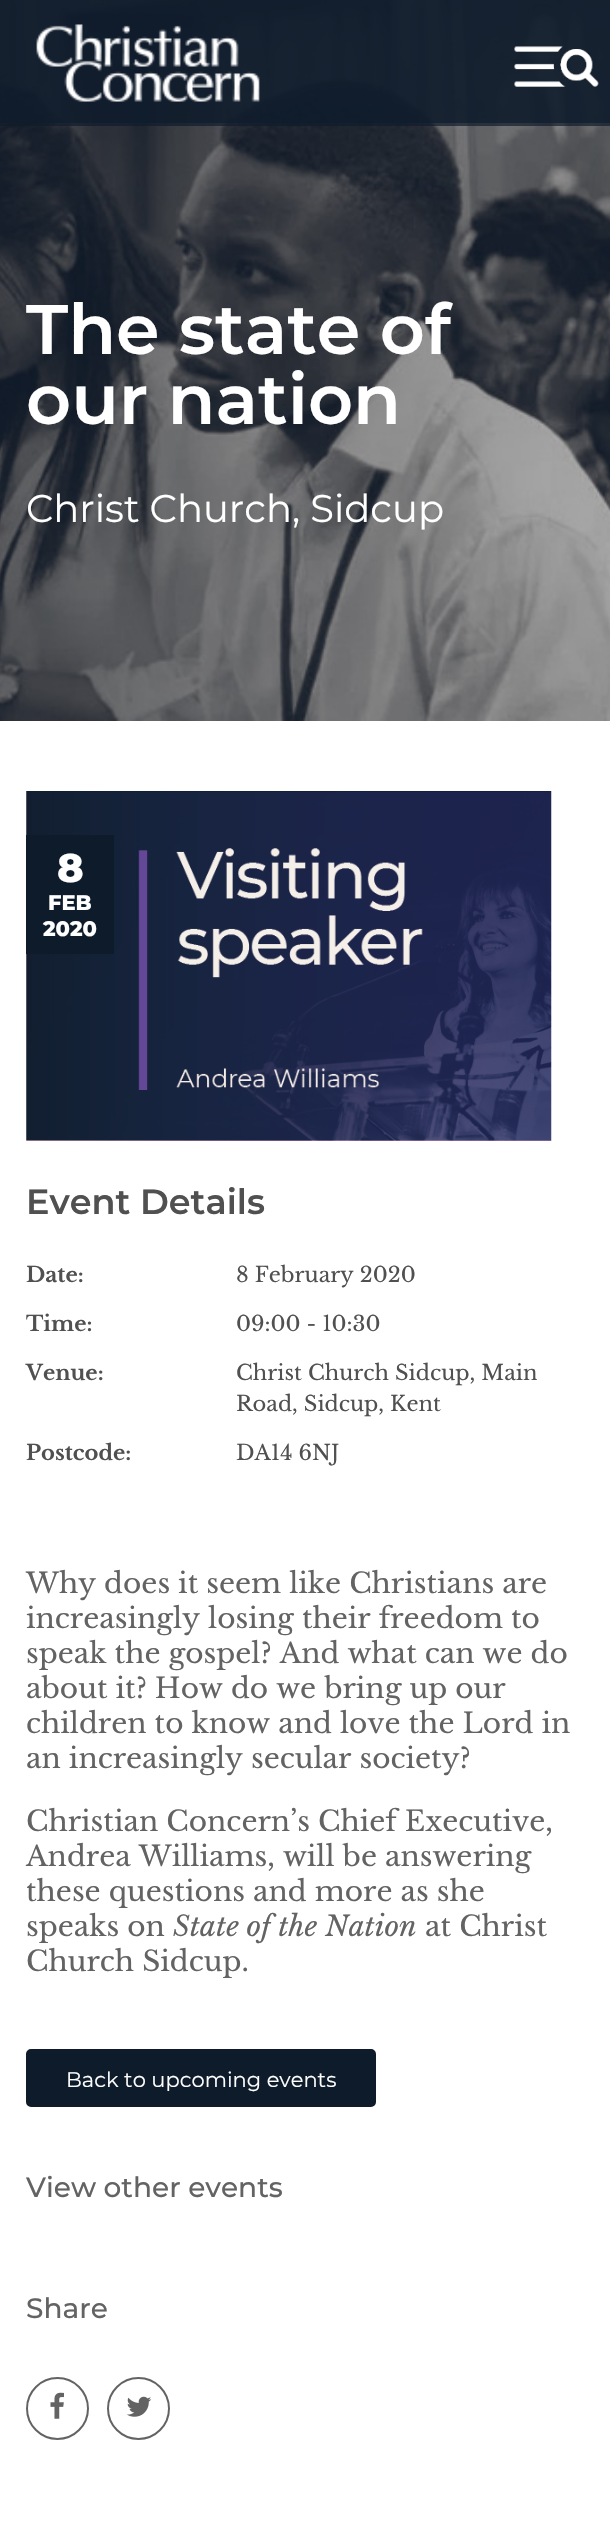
void draw(SkCanvas* canvas) {
    SkPaint paint;
    paint.setAntiAlias(true);
    canvas->clear(0xFFFFFFFF);
    canvas->drawImageRect(SkImages::DeferredFromEncodedData(SkData::MakeFromFileName("img3.png")), SkRect::MakeXYWH(0, 0, 610, 721), SkSamplingOptions());
    paint.setColor(0xB30E1B2B);
    canvas->drawRect(SkRect::MakeXYWH(0, 0, 610, 123), paint);
    canvas->drawRect(SkRect::MakeXYWH(0, 0, 610, 126), paint);
    canvas->drawImageRect(SkImages::DeferredFromEncodedData(SkData::MakeFromFileName("img1.png")), SkRect::MakeXYWH(36, 24, 224, 78), SkSamplingOptions());
    canvas->drawImageRect(SkImages::DeferredFromEncodedData(SkData::MakeFromFileName("img2.png")), SkRect::MakeXYWH(514, 46, 85, 41), SkSamplingOptions());
    SkFont font1(fontMgr->matchFamilyStyle("Montserrat", SkFontStyle(600, SkFontStyle::kNormal_Width, SkFontStyle::kUpright_Slant)), 70);
    font1.setSubpixel(true);
    paint.setColor(0xFFFFFFFF);
    canvas->drawString("The state of", 26, 354, font1, paint);
    canvas->drawString("our nation", 26, 424, font1, paint);
    SkFont font2(fontMgr->matchFamilyStyle("Montserrat", SkFontStyle::Normal()), 38.5f);
    font2.setSubpixel(true);
    canvas->drawString("Christ Church, Sidcup", 26, 522, font2, paint);
    canvas->drawImageRect(SkImages::DeferredFromEncodedData(SkData::MakeFromFileName("img4.png")), SkRect::MakeXYWH(26, 791, 526, 350), SkSamplingOptions());
    paint.setColor(0xFF0E1B2B);
    canvas->drawRect(SkRect::MakeXYWH(26, 835, 88, 119), paint);
    SkFont font3(fontMgr->matchFamilyStyle("Montserrat", SkFontStyle(800, SkFontStyle::kNormal_Width, SkFontStyle::kUpright_Slant)), 40);
    font3.setSubpixel(true);
    paint.setColor(0xFFFFFFFF);
    canvas->drawString("8", 57, 882, font3, paint);
    SkFont font4(fontMgr->matchFamilyStyle("Montserrat", SkFontStyle(800, SkFontStyle::kNormal_Width, SkFontStyle::kUpright_Slant)), 21);
    font4.setSubpixel(true);
    canvas->drawString("FEB", 48, 910, font4, paint);
    canvas->drawString("2020", 43, 936, font4, paint);
    SkFont font5(fontMgr->matchFamilyStyle("Montserrat", SkFontStyle(600, SkFontStyle::kNormal_Width, SkFontStyle::kUpright_Slant)), 35);
    font5.setSubpixel(true);
    paint.setColor(0xFF505050);
    canvas->drawString("Event Details", 26, 1214, font5, paint);
    SkFont font6(fontMgr->matchFamilyStyle("Libre Baskerville", SkFontStyle::Bold()), 21);
    font6.setSubpixel(true);
    canvas->drawString("Date:", 26, 1282, font6, paint);
    SkFont font7(fontMgr->matchFamilyStyle("Libre Baskerville", SkFontStyle::Normal()), 21);
    font7.setSubpixel(true);
    canvas->drawString("8 February 2020", 236, 1282, font7, paint);
    canvas->drawString("Time:", 26, 1331, font6, paint);
    canvas->drawString("09:00 - 10:30", 236, 1331, font7, paint);
    canvas->drawString("Venue:", 26, 1380, font6, paint);
    canvas->drawString("Christ Church Sidcup, Main", 236, 1380, font7, paint);
    canvas->drawString("Road, Sidcup, Kent", 236, 1411, font7, paint);
    canvas->drawString("Postcode:", 26, 1460, font6, paint);
    canvas->drawString("DA14 6NJ", 236, 1460, font7, paint);
    SkFont font8(fontMgr->matchFamilyStyle("Libre Baskerville", SkFontStyle::Normal()), 28);
    font8.setSubpixel(true);
    paint.setColor(0xFF636363);
    canvas->drawString("Why does it seem like Christians are", 26, 1593, font8, paint);
    canvas->drawString("increasingly losing their freedom to", 26, 1628, font8, paint);
    canvas->drawString("speak the gospel? And what can we do", 26, 1663, font8, paint);
    canvas->drawString("about it? How do we bring up our", 26, 1698, font8, paint);
    canvas->drawString("children to know and love the Lord in", 26, 1733, font8, paint);
    canvas->drawString("an increasingly secular society?", 26, 1768, font8, paint);
    canvas->drawString("Christian Concern’s Chief Executive,", 26, 1831, font8, paint);
    canvas->drawString("Andrea Williams, will be answering", 26, 1866, font8, paint);
    canvas->drawString("these questions and more as she", 26, 1901, font8, paint);
    canvas->drawString("speaks on", 26, 1936, font8, paint);
    SkFont font9(fontMgr->matchFamilyStyle("Libre Baskerville", SkFontStyle::Italic()), 28);
    font9.setSubpixel(true);
    canvas->drawString("State of the Nation", 173, 1936, font9, paint);
    canvas->drawString("at Christ", 425, 1936, font8, paint);
    canvas->drawString("Church Sidcup.", 26, 1971, font8, paint);
    paint.setColor(0xFF0E1B2B);
    canvas->drawRoundRect(SkRect::MakeXYWH(27, 2050, 348, 56), 4, 4, paint);
    paint.setStyle(SkPaint::kStroke_Style);
    paint.setStrokeWidth(2);
    canvas->drawRoundRect(SkRect::MakeXYWH(27, 2050, 348, 56), 4, 4, paint);
    SkFont font10(fontMgr->matchFamilyStyle("Montserrat", SkFontStyle::Normal()), 21);
    font10.setSubpixel(true);
    paint.setStyle(SkPaint::kFill_Style);
    paint.setColor(0xFFFFFFFF);
    canvas->drawString("Back to upcoming events", 66, 2087, font10, paint);
    SkFont font11(fontMgr->matchFamilyStyle("Montserrat", SkFontStyle(500, SkFontStyle::kNormal_Width, SkFontStyle::kUpright_Slant)), 28);
    font11.setSubpixel(true);
    paint.setColor(0xFF636363);
    canvas->drawString("View other events", 26, 2197, font11, paint);
    canvas->drawString("Share", 26, 2318, font11, paint);
    paint.setStyle(SkPaint::kStroke_Style);
    canvas->drawCircle(57.5f, 2408.5f, 30.5f, paint);
    canvas->drawImageRect(SkImages::DeferredFromEncodedData(SkData::MakeFromFileName("img5.png")), SkRect::MakeXYWH(50, 2392, 14, 27), SkSamplingOptions());
    canvas->drawCircle(138.5f, 2408.5f, 30.5f, paint);
    canvas->drawImageRect(SkImages::DeferredFromEncodedData(SkData::MakeFromFileName("img6.png")), SkRect::MakeXYWH(126, 2396, 26, 21), SkSamplingOptions());
}
